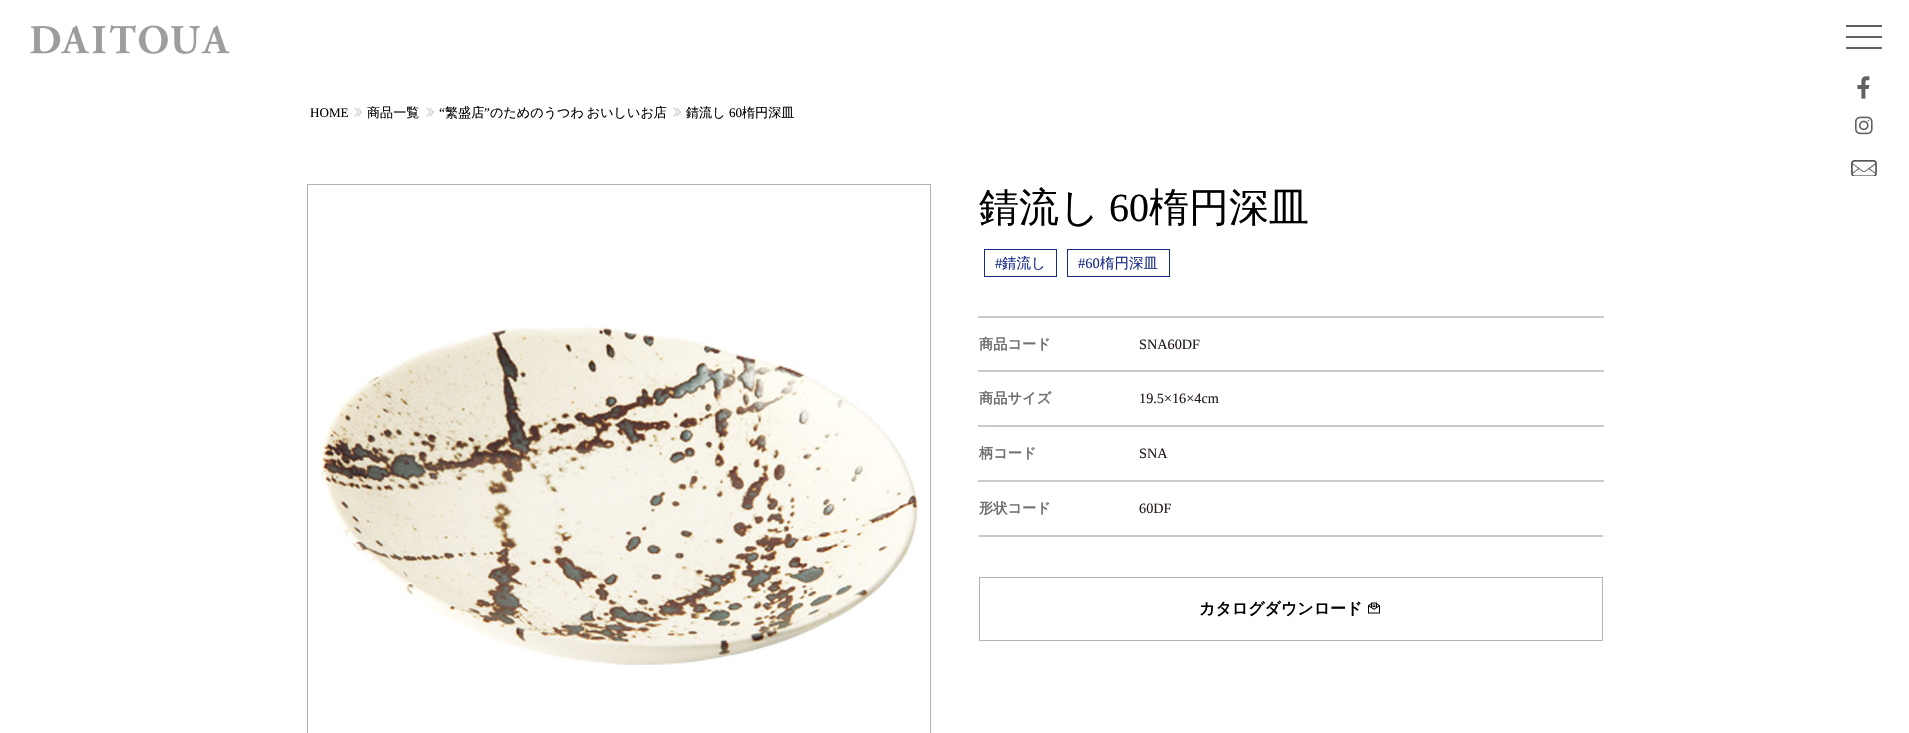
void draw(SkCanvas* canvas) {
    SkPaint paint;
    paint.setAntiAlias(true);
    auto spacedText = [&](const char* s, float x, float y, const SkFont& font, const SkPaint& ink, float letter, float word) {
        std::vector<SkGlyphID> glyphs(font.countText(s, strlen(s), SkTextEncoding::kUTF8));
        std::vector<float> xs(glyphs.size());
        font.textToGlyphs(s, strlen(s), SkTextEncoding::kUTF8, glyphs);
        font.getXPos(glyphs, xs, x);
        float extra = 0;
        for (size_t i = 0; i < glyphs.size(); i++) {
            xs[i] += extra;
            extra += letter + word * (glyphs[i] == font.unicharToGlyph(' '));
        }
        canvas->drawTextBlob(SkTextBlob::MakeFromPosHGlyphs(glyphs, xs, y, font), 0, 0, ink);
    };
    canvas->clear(0xFFFFFFFF);
    canvas->drawImageRect(SkImages::DeferredFromEncodedData(SkData::MakeFromFileName("img1.png")), SkRect::MakeXYWH(30, 25, 200, 29), SkSamplingOptions());
    paint.setColor(0xFF616161);
    canvas->drawRect(SkRect::MakeXYWH(1846, 25, 36, 2), paint);
    canvas->drawRect(SkRect::MakeXYWH(1846, 36, 36, 2), paint);
    canvas->drawRect(SkRect::MakeXYWH(1846, 47, 36, 2), paint);
    canvas->drawImageRect(SkImages::DeferredFromEncodedData(SkData::MakeFromFileName("img2.png")), SkRect::MakeXYWH(1857, 76, 13, 23), SkSamplingOptions());
    canvas->drawImageRect(SkImages::DeferredFromEncodedData(SkData::MakeFromFileName("img3.png")), SkRect::MakeXYWH(1855, 116, 18, 19), SkSamplingOptions());
    canvas->drawImageRect(SkImages::DeferredFromEncodedData(SkData::MakeFromFileName("img4.png")), SkRect::MakeXYWH(1851, 160, 26, 16), SkSamplingOptions());
    SkFont font1(fontMgr->matchFamilyStyle("Liberation Serif", SkFontStyle::Normal()), 13.1f);
    font1.setSubpixel(true);
    paint.setColor(0xFF000000);
    canvas->drawString("HOME", 310, 117, font1, paint);
    canvas->drawImageRect(SkImages::DeferredFromEncodedData(SkData::MakeFromFileName("img5.png")), SkRect::MakeXYWH(354, 107, 8, 10), SkSamplingOptions());
    SkFont font2(fontMgr->matchFamilyStyle("WenQuanYi Zen Hei", SkFontStyle(500, SkFontStyle::kNormal_Width, SkFontStyle::kUpright_Slant)), 13.1f);
    font2.setSubpixel(true);
    canvas->drawString("商品一覧", 367, 117, font2, paint);
    canvas->drawImageRect(SkImages::DeferredFromEncodedData(SkData::MakeFromFileName("img5.png")), SkRect::MakeXYWH(426, 107, 8, 10), SkSamplingOptions());
    canvas->drawString("“", 439, 117, font1, paint);
    canvas->drawString("繁盛店", 445, 117, font2, paint);
    canvas->drawString("”", 484, 117, font1, paint);
    spacedText("のためのうつわ おいしいお店", 490, 117, font2, paint, 0, -1);
    canvas->drawImageRect(SkImages::DeferredFromEncodedData(SkData::MakeFromFileName("img5.png")), SkRect::MakeXYWH(673, 107, 8, 10), SkSamplingOptions());
    canvas->drawString("錆流し", 686, 117, font2, paint);
    canvas->drawString("60", 729, 117, font1, paint);
    canvas->drawString("楕円深皿", 742, 117, font2, paint);
    paint.setStyle(SkPaint::kStroke_Style);
    paint.setStrokeWidth(1);
    paint.setColor(0xFFB0B0B0);
    canvas->drawRect(SkRect::MakeXYWH(307.5f, 184.5f, 623, 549), paint);
    canvas->drawImageRect(SkImages::DeferredFromEncodedData(SkData::MakeFromFileName("img6.png")), SkRect::MakeXYWH(320, 326, 598, 344), SkSamplingOptions());
    SkFont font3(fontMgr->matchFamilyStyle("WenQuanYi Zen Hei", SkFontStyle(500, SkFontStyle::kNormal_Width, SkFontStyle::kUpright_Slant)), 40);
    font3.setSubpixel(true);
    paint.setStyle(SkPaint::kFill_Style);
    paint.setColor(0xFF000000);
    canvas->drawString("錆流し", 979, 221, font3, paint);
    SkFont font4(fontMgr->matchFamilyStyle("Liberation Serif", SkFontStyle::Normal()), 40);
    font4.setSubpixel(true);
    canvas->drawString("60", 1109, 221, font4, paint);
    canvas->drawString("楕円深皿", 1149, 221, font3, paint);
    paint.setStyle(SkPaint::kStroke_Style);
    paint.setColor(0xFF172A88);
    canvas->drawRect(SkRect::MakeXYWH(984.5f, 249.5f, 72, 27), paint);
    SkFont font5(fontMgr->matchFamilyStyle("Liberation Serif", SkFontStyle::Normal()), 14.5f);
    font5.setSubpixel(true);
    paint.setStyle(SkPaint::kFill_Style);
    canvas->drawString("#", 995, 268, font5, paint);
    SkFont font6(fontMgr->matchFamilyStyle("WenQuanYi Zen Hei", SkFontStyle(500, SkFontStyle::kNormal_Width, SkFontStyle::kUpright_Slant)), 14.5f);
    font6.setSubpixel(true);
    canvas->drawString("錆流し", 1002, 268, font6, paint);
    paint.setStyle(SkPaint::kStroke_Style);
    canvas->drawRect(SkRect::MakeXYWH(1067.5f, 249.5f, 102, 27), paint);
    paint.setStyle(SkPaint::kFill_Style);
    canvas->drawString("#60", 1078, 268, font5, paint);
    canvas->drawString("楕円深皿", 1100, 268, font6, paint);
    paint.setColor(0xFFC9CACA);
    canvas->drawRect(SkRect::MakeXYWH(979, 535, 624, 2), paint);
    canvas->drawRect(SkRect::MakeXYWH(978, 316, 626, 2), paint);
    SkFont font7(fontMgr->matchFamilyStyle("WenQuanYi Zen Hei", SkFontStyle::Bold()), 14.25f);
    font7.setSubpixel(true);
    paint.setColor(0xFF707070);
    canvas->drawString("商品コード", 979, 349, font7, paint);
    SkFont font8(fontMgr->matchFamilyStyle("Liberation Serif", SkFontStyle::Normal()), 14.25f);
    font8.setSubpixel(true);
    paint.setColor(0xFF231815);
    canvas->drawString("SNA60DF", 1139, 349, font8, paint);
    paint.setColor(0xFFC9CACA);
    canvas->drawRect(SkRect::MakeXYWH(978, 370, 626, 2), paint);
    paint.setColor(0xFF707070);
    canvas->drawString("商品サイズ", 979, 403, font7, paint);
    paint.setColor(0xFF231815);
    canvas->drawString("19.5×16×4cm", 1139, 403, font8, paint);
    paint.setColor(0xFFC9CACA);
    canvas->drawRect(SkRect::MakeXYWH(978, 425, 626, 2), paint);
    canvas->drawRect(SkRect::MakeXYWH(978, 480, 626, 2), paint);
    paint.setColor(0xFF707070);
    canvas->drawString("柄コード", 979, 458, font7, paint);
    paint.setColor(0xFF231815);
    canvas->drawString("SNA", 1139, 458, font8, paint);
    paint.setColor(0xFF707070);
    canvas->drawString("形状コード", 979, 513, font7, paint);
    paint.setColor(0xFF231815);
    canvas->drawString("60DF", 1139, 513, font8, paint);
    paint.setStyle(SkPaint::kStroke_Style);
    paint.setColor(0xFFB3B3B3);
    canvas->drawRect(SkRect::MakeXYWH(979.5f, 577.5f, 623, 63), paint);
    SkFont font9(fontMgr->matchFamilyStyle("WenQuanYi Zen Hei", SkFontStyle::Bold()), 16);
    font9.setSubpixel(true);
    paint.setStyle(SkPaint::kFill_Style);
    paint.setColor(0xFF000000);
    canvas->drawString("カタログダウンロード", 1199, 614, font9, paint);
    canvas->drawImageRect(SkImages::DeferredFromEncodedData(SkData::MakeFromFileName("img7.png")), SkRect::MakeXYWH(1368, 602, 12, 12), SkSamplingOptions());
}
